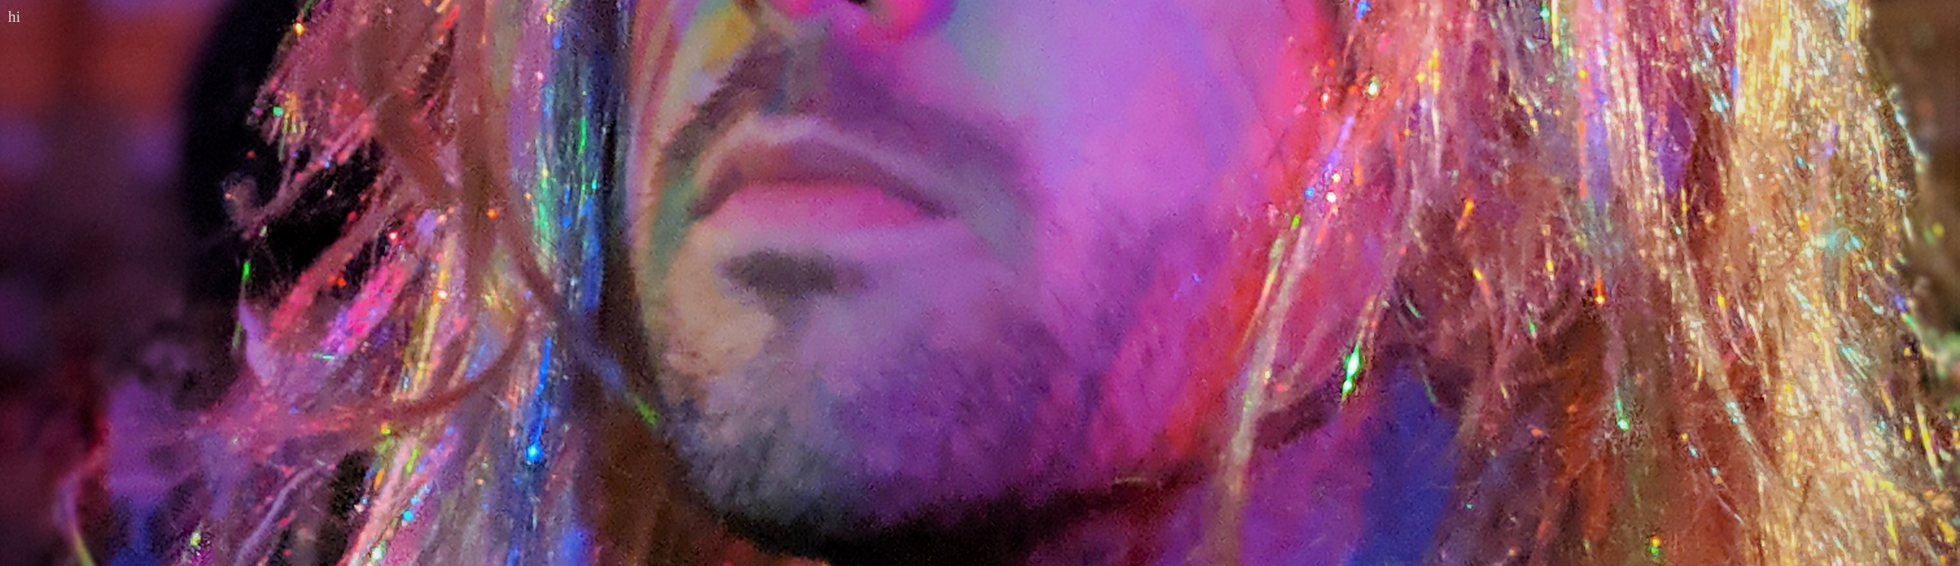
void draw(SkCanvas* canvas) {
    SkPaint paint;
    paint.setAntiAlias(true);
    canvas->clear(0xFFFFFFFF);
    canvas->drawImageRect(SkImages::DeferredFromEncodedData(SkData::MakeFromFileName("img1.png")), SkRect::MakeXYWH(0, 0, 1960, 566), SkSamplingOptions());
    SkFont font1(fontMgr->matchFamilyStyle("Liberation Serif", SkFontStyle::Normal()), 16);
    font1.setSubpixel(true);
    paint.setColor(0xFFCCCCCC);
    canvas->drawString("hi", 8, 22, font1, paint);
}
